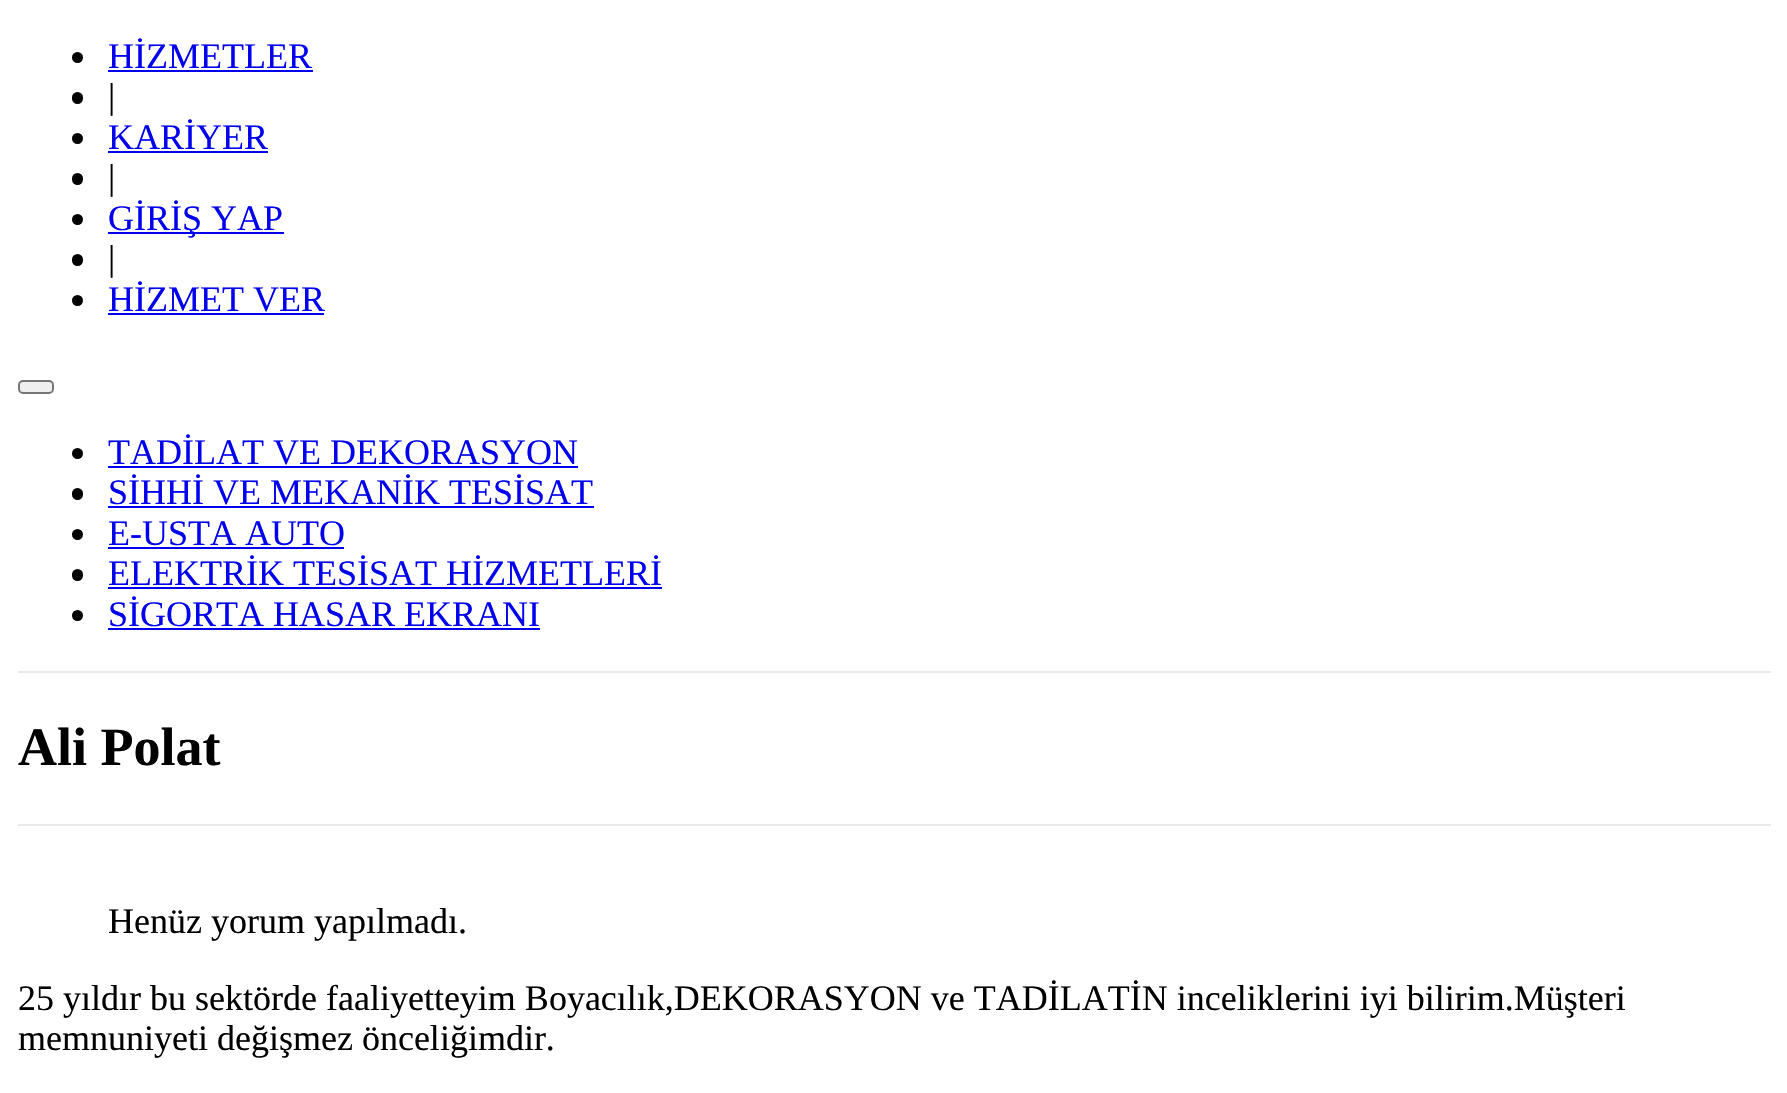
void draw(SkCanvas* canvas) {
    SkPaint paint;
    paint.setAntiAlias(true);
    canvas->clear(0xFFFFFFFF);
    paint.setColor(0xFF000000);
    canvas->drawCircle(77.5f, 57.5f, 5.5f, paint);
    SkFont font1(fontMgr->matchFamilyStyle("Liberation Serif", SkFontStyle::Normal()), 36);
    font1.setSubpixel(true);
    paint.setColor(0xFF0000EE);
    canvas->drawString("HİZMETLER", 108, 68, font1, paint);
    canvas->drawRect(SkRect::MakeXYWH(108, 70, 205, 2), paint);
    paint.setColor(0xFF000000);
    canvas->drawRoundRect(SkRect::MakeXYWH(72, 92, 11, 12), 5.5f, 5.5f, paint);
    canvas->drawString("|", 108, 108, font1, paint);
    canvas->drawCircle(77.5f, 138.5f, 5.5f, paint);
    paint.setColor(0xFF0000EE);
    canvas->drawString("KARİYER", 108, 149, font1, paint);
    canvas->drawRect(SkRect::MakeXYWH(108, 151, 160, 2), paint);
    paint.setColor(0xFF000000);
    canvas->drawRoundRect(SkRect::MakeXYWH(72, 173, 11, 12), 5.5f, 5.5f, paint);
    canvas->drawString("|", 108, 189, font1, paint);
    canvas->drawCircle(77.5f, 219.5f, 5.5f, paint);
    paint.setColor(0xFF0000EE);
    canvas->drawRect(SkRect::MakeXYWH(108, 232, 176, 2), paint);
    canvas->drawString("GİRİŞ YAP", 108, 230, font1, paint);
    paint.setColor(0xFF000000);
    canvas->drawRoundRect(SkRect::MakeXYWH(72, 254, 11, 12), 5.5f, 5.5f, paint);
    canvas->drawString("|", 108, 270, font1, paint);
    canvas->drawCircle(77.5f, 300.5f, 5.5f, paint);
    paint.setColor(0xFF0000EE);
    canvas->drawString("HİZMET VER", 108, 311, font1, paint);
    canvas->drawRect(SkRect::MakeXYWH(108, 313, 216, 2), paint);
    paint.setColor(0xFFEFEFEF);
    canvas->drawRoundRect(SkRect::MakeXYWH(19, 381, 34, 12), 4, 4, paint);
    paint.setStyle(SkPaint::kStroke_Style);
    paint.setStrokeWidth(2);
    paint.setColor(0xFF767676);
    canvas->drawRoundRect(SkRect::MakeXYWH(19, 381, 34, 12), 4, 4, paint);
    paint.setStyle(SkPaint::kFill_Style);
    paint.setColor(0xFF000000);
    canvas->drawCircle(77.5f, 453.5f, 5.5f, paint);
    paint.setColor(0xFF0000EE);
    canvas->drawString("TADİLAT VE DEKORASYON", 108, 464, font1, paint);
    canvas->drawRect(SkRect::MakeXYWH(108, 466, 470, 2), paint);
    paint.setColor(0xFF000000);
    canvas->drawRoundRect(SkRect::MakeXYWH(72, 488, 11, 12), 5.5f, 5.5f, paint);
    paint.setColor(0xFF0000EE);
    canvas->drawString("SİHHİ VE MEKANİK TESİSAT", 108, 504, font1, paint);
    canvas->drawRect(SkRect::MakeXYWH(108, 506, 486, 2), paint);
    paint.setColor(0xFF000000);
    canvas->drawCircle(77.5f, 534.5f, 5.5f, paint);
    paint.setColor(0xFF0000EE);
    canvas->drawString("E-USTA AUTO", 108, 545, font1, paint);
    canvas->drawRect(SkRect::MakeXYWH(108, 547, 236, 2), paint);
    paint.setColor(0xFF000000);
    canvas->drawRoundRect(SkRect::MakeXYWH(72, 569, 11, 12), 5.5f, 5.5f, paint);
    paint.setColor(0xFF0000EE);
    canvas->drawString("ELEKTRİK TESİSAT HİZMETLERİ", 108, 585, font1, paint);
    canvas->drawRect(SkRect::MakeXYWH(108, 587, 554, 2), paint);
    paint.setColor(0xFF000000);
    canvas->drawCircle(77.5f, 615.5f, 5.5f, paint);
    paint.setColor(0xFF0000EE);
    canvas->drawString("SİGORTA HASAR EKRANI", 108, 626, font1, paint);
    canvas->drawRect(SkRect::MakeXYWH(108, 628, 432, 2), paint);
    paint.setColor(0xFFE9E9E9);
    canvas->drawRect(SkRect::MakeXYWH(18, 671, 1753, 2), paint);
    canvas->drawRect(SkRect::MakeXYWH(18, 824, 1753, 2), paint);
    SkFont font2(fontMgr->matchFamilyStyle("Liberation Serif", SkFontStyle::Bold()), 54);
    font2.setSubpixel(true);
    paint.setColor(0xFF000000);
    canvas->drawString("Ali Polat", 18, 765, font2, paint);
    canvas->drawString("Henüz yorum yapılmadı.", 108, 933, font1, paint);
    canvas->drawString("25 yıldır bu sektörde faaliyetteyim Boyacılık,DEKORASYON ve TADİLATİN inceliklerini iyi bilirim.Müşteri", 18, 1010, font1, paint);
    canvas->drawString("memnuniyeti değişmez önceliğimdir.", 18, 1050, font1, paint);
}
